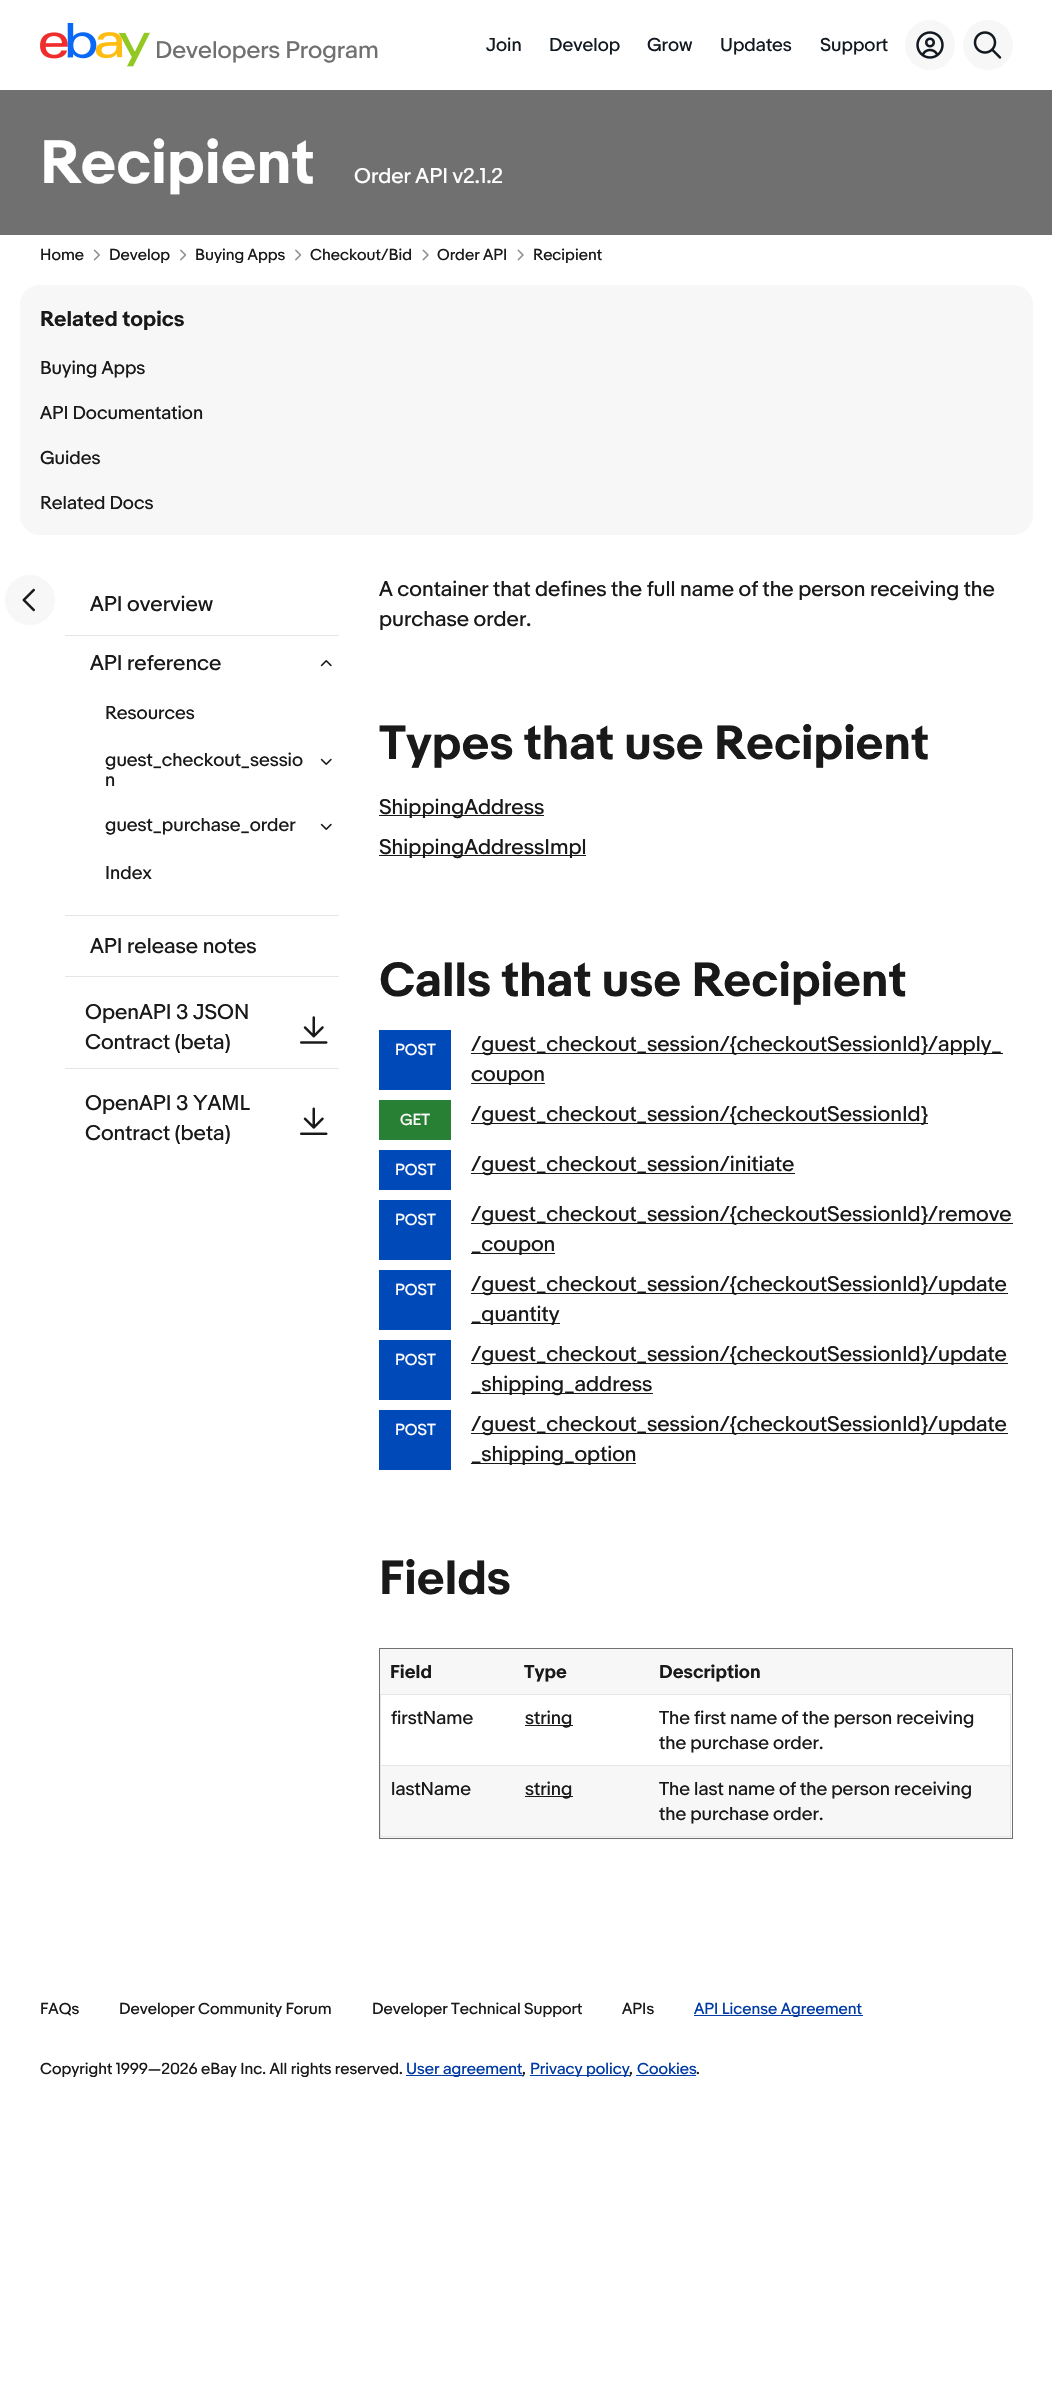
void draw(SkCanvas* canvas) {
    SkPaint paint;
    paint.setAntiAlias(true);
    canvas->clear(0xFFFFFFFF);
    canvas->drawImageRect(SkImages::DeferredFromEncodedData(SkData::MakeFromFileName("img1.png")), SkRect::MakeXYWH(40, 23, 110, 44), SkSamplingOptions());
    SkFont font1(fontMgr->matchFamilyStyle("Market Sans", SkFontStyle::Normal()), 22.5f);
    font1.setSubpixel(true);
    paint.setColor(0xFF707070);
    canvas->drawString("Developers Program", 155, 58, font1, paint);
    SkFont font2(fontMgr->matchFamilyStyle("Market Sans", SkFontStyle::Normal()), 17.5f);
    font2.setSubpixel(true);
    paint.setColor(0xFF111820);
    canvas->drawString("Join", 486, 51, font2, paint);
    canvas->drawString("Develop", 549, 51, font2, paint);
    canvas->drawString("Grow", 647, 51, font2, paint);
    canvas->drawString("Updates", 720, 51, font2, paint);
    canvas->drawString("Support", 820, 51, font2, paint);
    paint.setColor(0xFFF7F7F7);
    canvas->drawCircle(930, 45, 25, paint);
    canvas->drawImageRect(SkImages::DeferredFromEncodedData(SkData::MakeFromFileName("img2.png")), SkRect::MakeXYWH(916, 31, 28, 28), SkSamplingOptions());
    canvas->drawCircle(988, 45, 25, paint);
    canvas->drawImageRect(SkImages::DeferredFromEncodedData(SkData::MakeFromFileName("img3.png")), SkRect::MakeXYWH(973, 31, 29, 28), SkSamplingOptions());
    paint.setColor(0xFF707070);
    canvas->drawRect(SkRect::MakeXYWH(0, 90, 1052, 145), paint);
    SkFont font3(fontMgr->matchFamilyStyle("Market Sans", SkFontStyle::Bold()), 57.5f);
    font3.setSubpixel(true);
    paint.setColor(0xFFFFFFFF);
    canvas->drawString("Recipient", 40, 183, font3, paint);
    SkFont font4(fontMgr->matchFamilyStyle("Market Sans", SkFontStyle::Normal()), 20);
    font4.setSubpixel(true);
    canvas->drawString("Order API v2.1.2", 354, 183, font4, paint);
    SkFont font5(fontMgr->matchFamilyStyle("Market Sans", SkFontStyle::Normal()), 15);
    font5.setSubpixel(true);
    paint.setColor(0xFF191919);
    canvas->drawString("Home", 40, 260, font5, paint);
    canvas->drawImageRect(SkImages::DeferredFromEncodedData(SkData::MakeFromFileName("img4.png")), SkRect::MakeXYWH(93, 249, 7, 12), SkSamplingOptions());
    canvas->drawString("Develop", 109, 260, font5, paint);
    canvas->drawImageRect(SkImages::DeferredFromEncodedData(SkData::MakeFromFileName("img5.png")), SkRect::MakeXYWH(180, 249, 7, 12), SkSamplingOptions());
    canvas->drawString("Buying Apps", 195, 260, font5, paint);
    canvas->drawImageRect(SkImages::DeferredFromEncodedData(SkData::MakeFromFileName("img5.png")), SkRect::MakeXYWH(295, 249, 7, 12), SkSamplingOptions());
    canvas->drawString("Checkout/Bid", 310, 260, font5, paint);
    canvas->drawImageRect(SkImages::DeferredFromEncodedData(SkData::MakeFromFileName("img6.png")), SkRect::MakeXYWH(422, 249, 7, 12), SkSamplingOptions());
    canvas->drawString("Order API", 437, 260, font5, paint);
    canvas->drawImageRect(SkImages::DeferredFromEncodedData(SkData::MakeFromFileName("img6.png")), SkRect::MakeXYWH(517, 249, 7, 12), SkSamplingOptions());
    canvas->drawString("Recipient", 533, 260, font5, paint);
    paint.setColor(0xFFF7F7F7);
    canvas->drawRoundRect(SkRect::MakeXYWH(20, 285, 1013, 250), 20, 20, paint);
    SkFont font6(fontMgr->matchFamilyStyle("Market Sans", SkFontStyle::Bold()), 20);
    font6.setSubpixel(true);
    paint.setColor(0xFF191919);
    canvas->drawString("Related topics", 40, 326, font6, paint);
    canvas->drawString("Buying Apps", 40, 374, font2, paint);
    canvas->drawString("API Documentation", 40, 419, font2, paint);
    canvas->drawString("Guides", 40, 464, font2, paint);
    canvas->drawString("Related Docs", 40, 509, font2, paint);
    paint.setColor(0xFFF7F7F7);
    canvas->drawCircle(30, 600, 25, paint);
    canvas->drawImageRect(SkImages::DeferredFromEncodedData(SkData::MakeFromFileName("img7.png")), SkRect::MakeXYWH(22, 588, 13, 24), SkSamplingOptions());
    paint.setColor(0xFFE5E5E5);
    canvas->drawRect(SkRect::MakeXYWH(65, 635, 274, 1), paint);
    paint.setColor(0xFF191919);
    canvas->drawString("API overview", 90, 611, font4, paint);
    paint.setColor(0xFFE5E5E5);
    canvas->drawRect(SkRect::MakeXYWH(65, 915, 274, 1), paint);
    paint.setColor(0xFF191919);
    canvas->drawString("API reference", 90, 670, font4, paint);
    canvas->drawImageRect(SkImages::DeferredFromEncodedData(SkData::MakeFromFileName("img8.png")), SkRect::MakeXYWH(320, 660, 12, 7), SkSamplingOptions());
    canvas->drawString("Resources", 105, 719, font2, paint);
    canvas->drawString("guest_checkout_sessio", 105, 766, font2, paint);
    canvas->drawString("n", 105, 786, font2, paint);
    canvas->drawImageRect(SkImages::DeferredFromEncodedData(SkData::MakeFromFileName("img9.png")), SkRect::MakeXYWH(320, 758, 12, 7), SkSamplingOptions());
    canvas->drawString("guest_purchase_order", 105, 831, font2, paint);
    canvas->drawImageRect(SkImages::DeferredFromEncodedData(SkData::MakeFromFileName("img9.png")), SkRect::MakeXYWH(320, 823, 12, 7), SkSamplingOptions());
    canvas->drawString("Index", 105, 879, font2, paint);
    paint.setColor(0xFFE5E5E5);
    canvas->drawRect(SkRect::MakeXYWH(65, 976, 274, 1), paint);
    paint.setColor(0xFF191919);
    canvas->drawString("API release notes", 90, 953, font4, paint);
    paint.setColor(0xFFE5E5E5);
    canvas->drawRect(SkRect::MakeXYWH(65, 1068, 274, 1), paint);
    paint.setColor(0xFF191919);
    canvas->drawString("OpenAPI 3 JSON", 85, 1019, font4, paint);
    canvas->drawString("Contract (beta)", 85, 1049, font4, paint);
    canvas->drawImageRect(SkImages::DeferredFromEncodedData(SkData::MakeFromFileName("img10.png")), SkRect::MakeXYWH(300, 1016, 28, 28), SkSamplingOptions());
    canvas->drawString("OpenAPI 3 YAML", 85, 1110, font4, paint);
    canvas->drawString("Contract (beta)", 85, 1140, font4, paint);
    canvas->drawImageRect(SkImages::DeferredFromEncodedData(SkData::MakeFromFileName("img11.png")), SkRect::MakeXYWH(300, 1107, 28, 28), SkSamplingOptions());
    canvas->drawString("A container that defines the full name of the person receiving the", 379, 596, font4, paint);
    canvas->drawString("purchase order.", 379, 626, font4, paint);
    SkFont font7(fontMgr->matchFamilyStyle("Market Sans", SkFontStyle::Bold()), 45);
    font7.setSubpixel(true);
    canvas->drawString("Types that use Recipient", 379, 759, font7, paint);
    canvas->drawRect(SkRect::MakeXYWH(379, 815, 165, 1), paint);
    canvas->drawString("ShippingAddress", 379, 814, font4, paint);
    canvas->drawRect(SkRect::MakeXYWH(379, 855, 207, 1), paint);
    canvas->drawString("ShippingAddressImpl", 379, 854, font4, paint);
    canvas->drawString("Calls that use Recipient", 379, 996, font7, paint);
    paint.setColor(0xFF0049B8);
    canvas->drawRect(SkRect::MakeXYWH(379, 1030, 72, 60), paint);
    paint.setColor(0xFFFFFFFF);
    canvas->drawString("POST", 395, 1055, font5, paint);
    paint.setColor(0xFF191919);
    canvas->drawRect(SkRect::MakeXYWH(471, 1053, 532, 1), paint);
    canvas->drawString("/guest_checkout_session/{checkoutSessionId}/apply_", 471, 1051, font4, paint);
    canvas->drawRect(SkRect::MakeXYWH(471, 1083, 74, 1), paint);
    canvas->drawString("coupon", 471, 1081, font4, paint);
    paint.setColor(0xFF288034);
    canvas->drawRect(SkRect::MakeXYWH(379, 1100, 72, 40), paint);
    paint.setColor(0xFFFFFFFF);
    canvas->drawString("GET", 400, 1125, font5, paint);
    paint.setColor(0xFF191919);
    canvas->drawRect(SkRect::MakeXYWH(471, 1123, 457, 1), paint);
    canvas->drawString("/guest_checkout_session/{checkoutSessionId}", 471, 1121, font4, paint);
    paint.setColor(0xFF0049B8);
    canvas->drawRect(SkRect::MakeXYWH(379, 1150, 72, 40), paint);
    paint.setColor(0xFFFFFFFF);
    canvas->drawString("POST", 395, 1175, font5, paint);
    paint.setColor(0xFF191919);
    canvas->drawRect(SkRect::MakeXYWH(471, 1173, 324, 1), paint);
    canvas->drawString("/guest_checkout_session/initiate", 471, 1171, font4, paint);
    paint.setColor(0xFF0049B8);
    canvas->drawRect(SkRect::MakeXYWH(379, 1200, 72, 60), paint);
    paint.setColor(0xFFFFFFFF);
    canvas->drawString("POST", 395, 1225, font5, paint);
    paint.setColor(0xFF191919);
    canvas->drawRect(SkRect::MakeXYWH(471, 1223, 542, 1), paint);
    canvas->drawString("/guest_checkout_session/{checkoutSessionId}/remove", 471, 1221, font4, paint);
    canvas->drawRect(SkRect::MakeXYWH(471, 1253, 84, 1), paint);
    canvas->drawString("_coupon", 471, 1251, font4, paint);
    paint.setColor(0xFF0049B8);
    canvas->drawRect(SkRect::MakeXYWH(379, 1270, 72, 60), paint);
    paint.setColor(0xFFFFFFFF);
    canvas->drawString("POST", 395, 1295, font5, paint);
    paint.setColor(0xFF191919);
    canvas->drawRect(SkRect::MakeXYWH(471, 1293, 537, 1), paint);
    canvas->drawString("/guest_checkout_session/{checkoutSessionId}/update", 471, 1291, font4, paint);
    canvas->drawRect(SkRect::MakeXYWH(471, 1323, 89, 1), paint);
    canvas->drawString("_quantity", 471, 1321, font4, paint);
    paint.setColor(0xFF0049B8);
    canvas->drawRect(SkRect::MakeXYWH(379, 1340, 72, 60), paint);
    paint.setColor(0xFFFFFFFF);
    canvas->drawString("POST", 395, 1365, font5, paint);
    paint.setColor(0xFF191919);
    canvas->drawRect(SkRect::MakeXYWH(471, 1363, 537, 1), paint);
    canvas->drawString("/guest_checkout_session/{checkoutSessionId}/update", 471, 1361, font4, paint);
    canvas->drawRect(SkRect::MakeXYWH(471, 1393, 182, 1), paint);
    canvas->drawString("_shipping_address", 471, 1391, font4, paint);
    paint.setColor(0xFF0049B8);
    canvas->drawRect(SkRect::MakeXYWH(379, 1410, 72, 60), paint);
    paint.setColor(0xFFFFFFFF);
    canvas->drawString("POST", 395, 1435, font5, paint);
    paint.setColor(0xFF191919);
    canvas->drawRect(SkRect::MakeXYWH(471, 1433, 537, 1), paint);
    canvas->drawString("/guest_checkout_session/{checkoutSessionId}/update", 471, 1431, font4, paint);
    canvas->drawRect(SkRect::MakeXYWH(471, 1463, 165, 1), paint);
    canvas->drawString("_shipping_option", 471, 1461, font4, paint);
    canvas->drawString("Fields", 379, 1594, font7, paint);
    paint.setStyle(SkPaint::kStroke_Style);
    paint.setStrokeWidth(1);
    paint.setColor(0xFF707070);
    canvas->drawRect(SkRect::MakeXYWH(379.5f, 1648.5f, 633, 190), paint);
    paint.setStyle(SkPaint::kFill_Style);
    paint.setColor(0xFFF7F7F7);
    canvas->drawRect(SkRect::MakeXYWH(380, 1649, 631, 45), paint);
    SkFont font8(fontMgr->matchFamilyStyle("Market Sans", SkFontStyle::Bold()), 17.5f);
    font8.setSubpixel(true);
    paint.setColor(0xFF191919);
    canvas->drawString("Field", 390, 1678, font8, paint);
    canvas->drawString("Type", 524, 1678, font8, paint);
    canvas->drawString("Description", 659, 1678, font8, paint);
    paint.setStyle(SkPaint::kStroke_Style);
    paint.setColor(0xFFE5E5E5);
    canvas->drawRect(SkRect::MakeXYWH(380.5f, 1694.5f, 630, 71), paint);
    paint.setStyle(SkPaint::kFill_Style);
    paint.setColor(0xFF191919);
    canvas->drawString("firstName", 391, 1724, font2, paint);
    canvas->drawRect(SkRect::MakeXYWH(525, 1725, 48, 1), paint);
    canvas->drawString("string", 525, 1724, font2, paint);
    canvas->drawString("The first name of the person receiving", 659, 1724, font2, paint);
    canvas->drawString("the purchase order.", 659, 1749, font2, paint);
    paint.setColor(0xFFF7F7F7);
    canvas->drawRect(SkRect::MakeXYWH(381, 1766, 629, 72), paint);
    paint.setColor(0xFFE5E5E5);
    canvas->drawRect(SkRect::MakeXYWH(1010, 1766, 1, 72), paint);
    canvas->drawRect(SkRect::MakeXYWH(380, 1836, 631, 1), paint);
    canvas->drawRect(SkRect::MakeXYWH(380, 1766, 1, 72), paint);
    paint.setColor(0xFF191919);
    canvas->drawString("lastName", 391, 1795, font2, paint);
    canvas->drawRect(SkRect::MakeXYWH(525, 1796, 48, 1), paint);
    canvas->drawString("string", 525, 1795, font2, paint);
    canvas->drawString("The last name of the person receiving", 659, 1795, font2, paint);
    canvas->drawString("the purchase order.", 659, 1820, font2, paint);
    canvas->drawString("FAQs", 40, 2014, font5, paint);
    canvas->drawString("Developer Community Forum", 119, 2014, font5, paint);
    canvas->drawString("Developer Technical Support", 372, 2014, font5, paint);
    canvas->drawString("APIs", 622, 2014, font5, paint);
    paint.setColor(0xFF003AA5);
    canvas->drawRect(SkRect::MakeXYWH(694, 2015, 169, 1), paint);
    canvas->drawString("API License Agreement", 694, 2014, font5, paint);
    paint.setColor(0xFF191919);
    canvas->drawString("Copyright 1999—2026 eBay Inc. All rights reserved.", 40, 2074, font5, paint);
    paint.setColor(0xFF003AA5);
    canvas->drawRect(SkRect::MakeXYWH(406, 2075, 117, 1), paint);
    canvas->drawString("User agreement", 406, 2074, font5, paint);
    paint.setColor(0xFF191919);
    canvas->drawString(",", 522, 2074, font5, paint);
    paint.setColor(0xFF003AA5);
    canvas->drawRect(SkRect::MakeXYWH(530, 2075, 100, 1), paint);
    canvas->drawString("Privacy policy", 530, 2074, font5, paint);
    paint.setColor(0xFF191919);
    canvas->drawString(",", 629, 2074, font5, paint);
    paint.setColor(0xFF003AA5);
    canvas->drawString("Cookies", 637, 2074, font5, paint);
    canvas->drawRect(SkRect::MakeXYWH(636, 2075, 60, 1), paint);
    paint.setColor(0xFF191919);
    canvas->drawString(".", 696, 2074, font5, paint);
}
